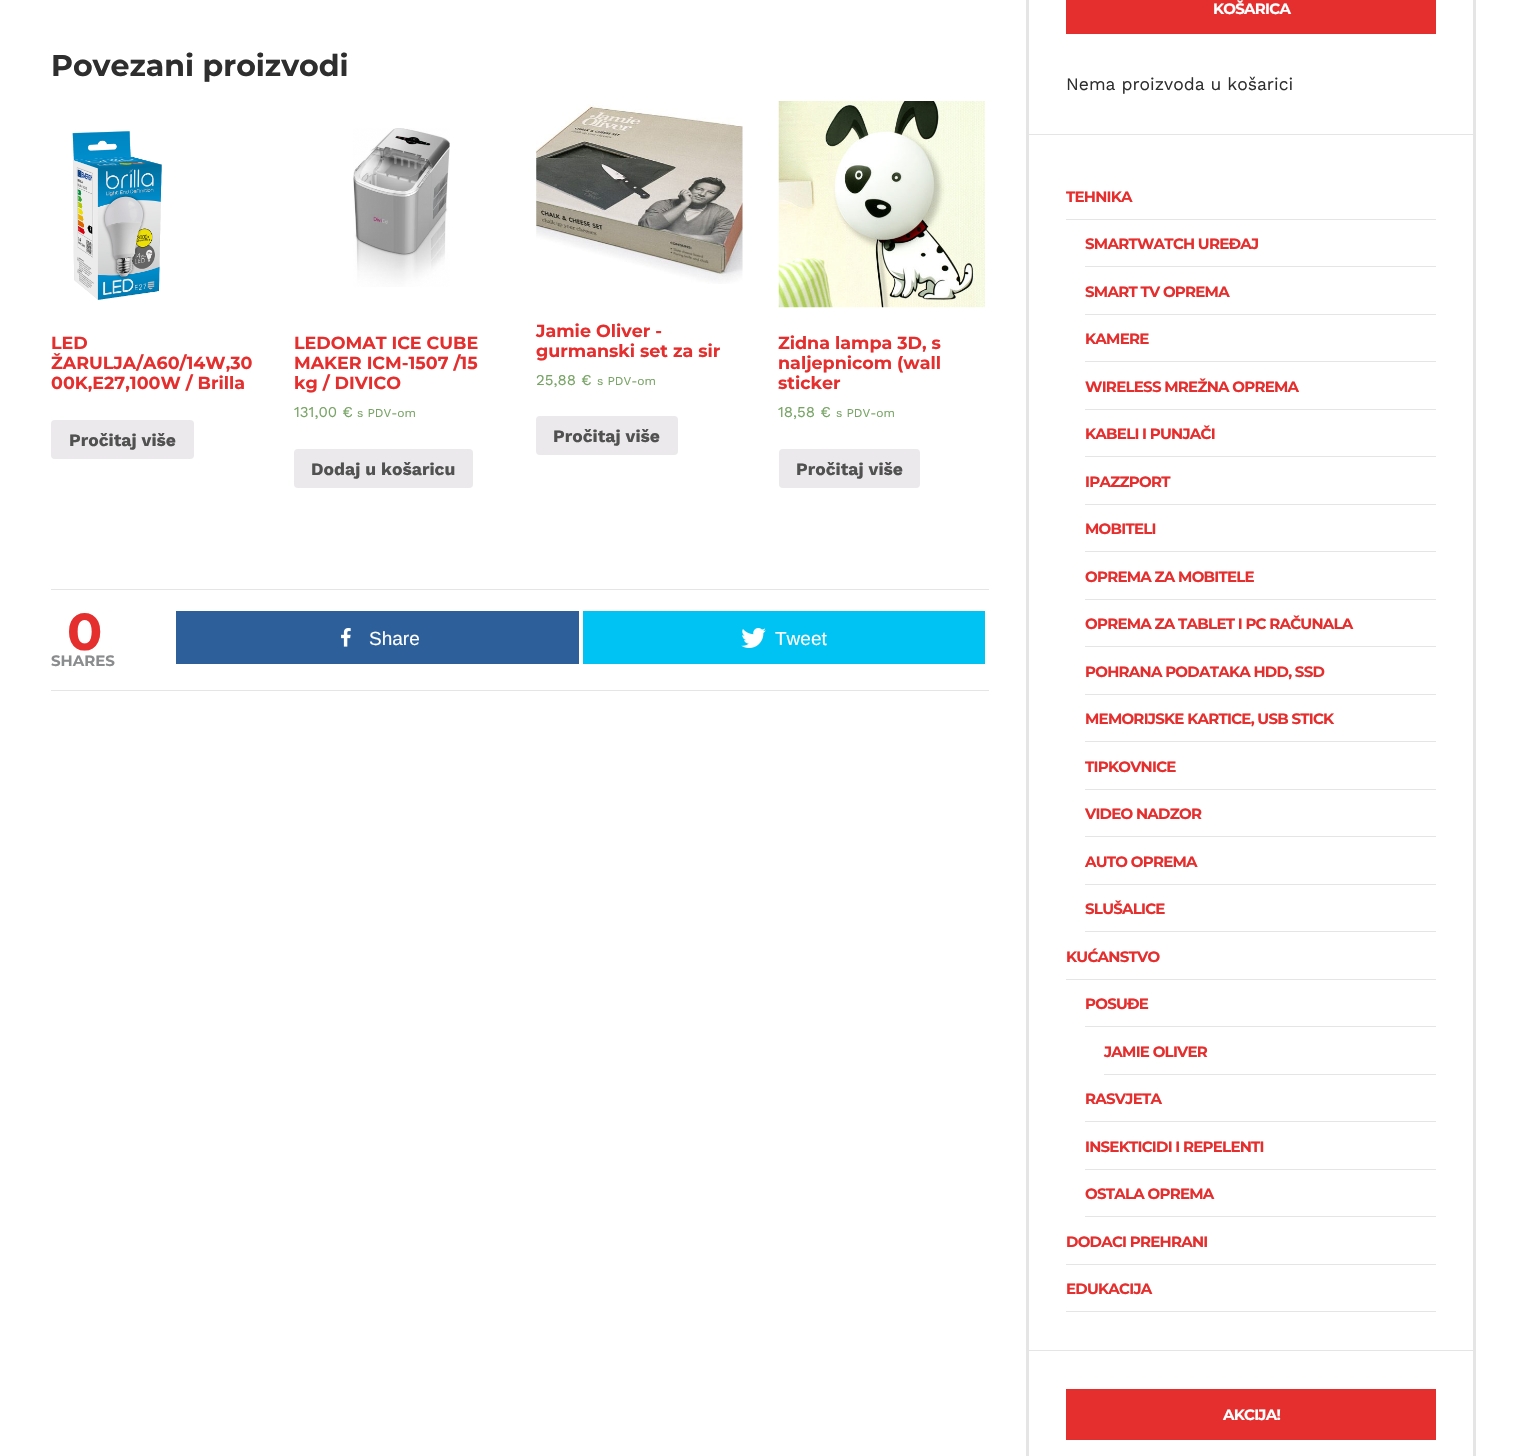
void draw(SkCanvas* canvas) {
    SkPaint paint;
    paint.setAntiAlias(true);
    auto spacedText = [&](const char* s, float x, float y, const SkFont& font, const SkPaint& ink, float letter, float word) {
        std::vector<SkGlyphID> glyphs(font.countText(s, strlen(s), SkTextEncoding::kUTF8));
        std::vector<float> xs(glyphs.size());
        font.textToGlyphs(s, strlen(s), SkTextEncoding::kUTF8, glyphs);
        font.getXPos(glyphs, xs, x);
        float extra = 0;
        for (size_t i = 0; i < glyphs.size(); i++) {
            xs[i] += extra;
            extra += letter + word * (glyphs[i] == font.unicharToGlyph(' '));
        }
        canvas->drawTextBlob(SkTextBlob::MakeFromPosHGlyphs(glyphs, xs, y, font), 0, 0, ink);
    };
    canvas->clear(0xFFFFFFFF);
    SkFont font1(fontMgr->matchFamilyStyle("Montserrat", SkFontStyle::Bold()), 30);
    font1.setSubpixel(true);
    paint.setColor(0xFF2E2E2E);
    canvas->drawString("Povezani proizvodi", 51, 76, font1, paint);
    canvas->drawImageRect(SkImages::DeferredFromEncodedData(SkData::MakeFromFileName("img1.png")), SkRect::MakeXYWH(72, 131, 90, 169), SkSamplingOptions());
    SkFont font2(fontMgr->matchFamilyStyle("Montserrat", SkFontStyle::Bold()), 17.5f);
    font2.setSubpixel(true);
    paint.setColor(0xFFE52F2E);
    canvas->drawString("LED", 51, 349, font2, paint);
    canvas->drawString("ŽARULJA/A60/14W,30", 51, 369, font2, paint);
    canvas->drawString("00K,E27,100W / Brilla", 51, 389, font2, paint);
    paint.setColor(0xFFEBE9EB);
    canvas->drawRoundRect(SkRect::MakeXYWH(51, 420, 143, 39), 4, 4, paint);
    SkFont font3(fontMgr->matchFamilyStyle("Work Sans", SkFontStyle::Bold()), 17.5f);
    font3.setSubpixel(true);
    paint.setColor(0xFF515151);
    canvas->drawString("Pročitaj više", 69, 446, font3, paint);
    canvas->drawImageRect(SkImages::DeferredFromEncodedData(SkData::MakeFromFileName("img2.png")), SkRect::MakeXYWH(353, 128, 97, 159), SkSamplingOptions());
    paint.setColor(0xFFE52F2E);
    canvas->drawString("LEDOMAT ICE CUBE", 294, 349, font2, paint);
    canvas->drawString("MAKER ICM-1507 /15", 294, 369, font2, paint);
    canvas->drawString("kg / DIVICO", 294, 389, font2, paint);
    SkFont font4(fontMgr->matchFamilyStyle("Work Sans", SkFontStyle::Normal()), 15);
    font4.setSubpixel(true);
    paint.setColor(0xFF77A464);
    canvas->drawString("131,00 €", 294, 417, font4, paint);
    SkFont font5(fontMgr->matchFamilyStyle("Work Sans", SkFontStyle::Normal()), 12);
    font5.setSubpixel(true);
    canvas->drawString("s PDV-om", 357, 417, font5, paint);
    paint.setColor(0xFFEBE9EB);
    canvas->drawRoundRect(SkRect::MakeXYWH(294, 449, 179, 39), 4, 4, paint);
    paint.setColor(0xFF515151);
    canvas->drawString("Dodaj u košaricu", 311, 475, font3, paint);
    canvas->drawImageRect(SkImages::DeferredFromEncodedData(SkData::MakeFromFileName("img3.png")), SkRect::MakeXYWH(536, 101, 207, 183), SkSamplingOptions());
    paint.setColor(0xFFE52F2E);
    canvas->drawString("Jamie Oliver -", 536, 337, font2, paint);
    canvas->drawString("gurmanski set za sir", 536, 357, font2, paint);
    paint.setColor(0xFF77A464);
    canvas->drawString("25,88 €", 536, 385, font4, paint);
    canvas->drawString("s PDV-om", 597, 385, font5, paint);
    paint.setColor(0xFFEBE9EB);
    canvas->drawRoundRect(SkRect::MakeXYWH(536, 416, 142, 39), 4, 4, paint);
    paint.setColor(0xFF515151);
    canvas->drawString("Pročitaj više", 553, 442, font3, paint);
    canvas->drawImageRect(SkImages::DeferredFromEncodedData(SkData::MakeFromFileName("img4.png")), SkRect::MakeXYWH(778, 101, 207, 207), SkSamplingOptions());
    paint.setColor(0xFFE52F2E);
    canvas->drawString("Zidna lampa 3D, s", 778, 349, font2, paint);
    canvas->drawString("naljepnicom (wall", 778, 369, font2, paint);
    canvas->drawString("sticker", 778, 389, font2, paint);
    paint.setColor(0xFF77A464);
    canvas->drawString("18,58 €", 778, 417, font4, paint);
    canvas->drawString("s PDV-om", 836, 417, font5, paint);
    paint.setColor(0xFFEBE9EB);
    canvas->drawRoundRect(SkRect::MakeXYWH(779, 449, 141, 39), 4, 4, paint);
    paint.setColor(0xFF515151);
    canvas->drawString("Pročitaj više", 796, 475, font3, paint);
    paint.setColor(0xFFE5E5E5);
    canvas->drawRect(SkRect::MakeXYWH(51, 589, 938, 1), paint);
    canvas->drawRect(SkRect::MakeXYWH(51, 690, 938, 1), paint);
    SkFont font6(fontMgr->matchFamilyStyle("Montserrat", SkFontStyle::Bold()), 52);
    font6.setSubpixel(true);
    paint.setColor(0xFFE52F2E);
    spacedText("0", 67, 650, font6, paint, -3, 0);
    SkFont font7(fontMgr->matchFamilyStyle("Montserrat", SkFontStyle::Bold()), 15);
    font7.setSubpixel(true);
    paint.setColor(0xFF8A8C8E);
    canvas->drawString("SHARES", 51, 666, font7, paint);
    paint.setColor(0xFF2D5F9A);
    canvas->drawRect(SkRect::MakeXYWH(176, 611, 403, 53), paint);
    canvas->drawImageRect(SkImages::DeferredFromEncodedData(SkData::MakeFromFileName("img5.png")), SkRect::MakeXYWH(341, 628, 10, 19), SkSamplingOptions());
    SkFont font8(fontMgr->matchFamilyStyle("Liberation Sans", SkFontStyle::Normal()), 19);
    font8.setSubpixel(true);
    paint.setColor(0xFFFFFFFF);
    canvas->drawString("Share", 369, 645, font8, paint);
    paint.setColor(0xFF00C3F3);
    canvas->drawRect(SkRect::MakeXYWH(583, 611, 402, 53), paint);
    canvas->drawImageRect(SkImages::DeferredFromEncodedData(SkData::MakeFromFileName("img6.png")), SkRect::MakeXYWH(741, 628, 25, 20), SkSamplingOptions());
    paint.setColor(0xFFFFFFFF);
    canvas->drawString("Tweet", 775, 645, font8, paint);
    paint.setStyle(SkPaint::kStroke_Style);
    paint.setStrokeWidth(3);
    paint.setColor(0xFFE5E5E5);
    canvas->drawRect(SkRect::MakeXYWH(1027.5f, -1.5f, 447, 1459), paint);
    paint.setStyle(SkPaint::kFill_Style);
    canvas->drawRect(SkRect::MakeXYWH(1029, 134, 445, 1), paint);
    paint.setColor(0xFFE52F2E);
    canvas->drawRect(SkRect::MakeXYWH(1066, 0, 370, 34), paint);
    paint.setColor(0xFFFFFFFF);
    spacedText("KOŠARICA", 1213, 14, font7, paint, -0.75f, 0);
    SkFont font9(fontMgr->matchFamilyStyle("Work Sans", SkFontStyle::Normal()), 17.5f);
    font9.setSubpixel(true);
    paint.setColor(0xFF2E2E2E);
    canvas->drawString("Nema proizvoda u košarici", 1066, 90, font9, paint);
    paint.setColor(0xFFE5E5E5);
    canvas->drawRect(SkRect::MakeXYWH(1029, 1350, 445, 1), paint);
    canvas->drawRect(SkRect::MakeXYWH(1066, 219, 370, 1), paint);
    paint.setColor(0xFFE52F2E);
    spacedText("TEHNIKA", 1066, 202, font7, paint, -0.75f, 0);
    paint.setColor(0xFFE5E5E5);
    canvas->drawRect(SkRect::MakeXYWH(1085, 266, 351, 1), paint);
    paint.setColor(0xFFE52F2E);
    spacedText("SMARTWATCH UREĐAJ", 1085, 249, font7, paint, -0.75f, 0);
    paint.setColor(0xFFE5E5E5);
    canvas->drawRect(SkRect::MakeXYWH(1085, 314, 351, 1), paint);
    paint.setColor(0xFFE52F2E);
    spacedText("SMART TV OPREMA", 1085, 297, font7, paint, -0.75f, 0);
    paint.setColor(0xFFE5E5E5);
    canvas->drawRect(SkRect::MakeXYWH(1085, 361, 351, 1), paint);
    paint.setColor(0xFFE52F2E);
    spacedText("KAMERE", 1085, 344, font7, paint, -0.75f, 0);
    paint.setColor(0xFFE5E5E5);
    canvas->drawRect(SkRect::MakeXYWH(1085, 409, 351, 1), paint);
    paint.setColor(0xFFE52F2E);
    spacedText("WIRELESS MREŽNA OPREMA", 1085, 392, font7, paint, -0.75f, 0);
    paint.setColor(0xFFE5E5E5);
    canvas->drawRect(SkRect::MakeXYWH(1085, 456, 351, 1), paint);
    paint.setColor(0xFFE52F2E);
    spacedText("KABELI I PUNJAČI", 1085, 439, font7, paint, -0.75f, 0);
    paint.setColor(0xFFE5E5E5);
    canvas->drawRect(SkRect::MakeXYWH(1085, 504, 351, 1), paint);
    paint.setColor(0xFFE52F2E);
    spacedText("IPAZZPORT", 1085, 487, font7, paint, -0.75f, 0);
    paint.setColor(0xFFE5E5E5);
    canvas->drawRect(SkRect::MakeXYWH(1085, 551, 351, 1), paint);
    paint.setColor(0xFFE52F2E);
    spacedText("MOBITELI", 1085, 534, font7, paint, -0.75f, 0);
    paint.setColor(0xFFE5E5E5);
    canvas->drawRect(SkRect::MakeXYWH(1085, 599, 351, 1), paint);
    paint.setColor(0xFFE52F2E);
    spacedText("OPREMA ZA MOBITELE", 1085, 582, font7, paint, -0.75f, 0);
    paint.setColor(0xFFE5E5E5);
    canvas->drawRect(SkRect::MakeXYWH(1085, 646, 351, 1), paint);
    paint.setColor(0xFFE52F2E);
    spacedText("OPREMA ZA TABLET I PC RAČUNALA", 1085, 629, font7, paint, -0.75f, 0);
    paint.setColor(0xFFE5E5E5);
    canvas->drawRect(SkRect::MakeXYWH(1085, 694, 351, 1), paint);
    paint.setColor(0xFFE52F2E);
    spacedText("POHRANA PODATAKA HDD, SSD", 1085, 677, font7, paint, -0.75f, 0);
    paint.setColor(0xFFE5E5E5);
    canvas->drawRect(SkRect::MakeXYWH(1085, 741, 351, 1), paint);
    paint.setColor(0xFFE52F2E);
    spacedText("MEMORIJSKE KARTICE, USB STICK", 1085, 724, font7, paint, -0.75f, 0);
    paint.setColor(0xFFE5E5E5);
    canvas->drawRect(SkRect::MakeXYWH(1085, 789, 351, 1), paint);
    paint.setColor(0xFFE52F2E);
    spacedText("TIPKOVNICE", 1085, 772, font7, paint, -0.75f, 0);
    paint.setColor(0xFFE5E5E5);
    canvas->drawRect(SkRect::MakeXYWH(1085, 836, 351, 1), paint);
    paint.setColor(0xFFE52F2E);
    spacedText("VIDEO NADZOR", 1085, 819, font7, paint, -0.75f, 0);
    paint.setColor(0xFFE5E5E5);
    canvas->drawRect(SkRect::MakeXYWH(1085, 884, 351, 1), paint);
    paint.setColor(0xFFE52F2E);
    spacedText("AUTO OPREMA", 1085, 867, font7, paint, -0.75f, 0);
    paint.setColor(0xFFE5E5E5);
    canvas->drawRect(SkRect::MakeXYWH(1085, 931, 351, 1), paint);
    paint.setColor(0xFFE52F2E);
    spacedText("SLUŠALICE", 1085, 914, font7, paint, -0.75f, 0);
    paint.setColor(0xFFE5E5E5);
    canvas->drawRect(SkRect::MakeXYWH(1066, 979, 370, 1), paint);
    paint.setColor(0xFFE52F2E);
    spacedText("KUĆANSTVO", 1066, 962, font7, paint, -0.75f, 0);
    paint.setColor(0xFFE5E5E5);
    canvas->drawRect(SkRect::MakeXYWH(1085, 1026, 351, 1), paint);
    paint.setColor(0xFFE52F2E);
    spacedText("POSUĐE", 1085, 1009, font7, paint, -0.75f, 0);
    paint.setColor(0xFFE5E5E5);
    canvas->drawRect(SkRect::MakeXYWH(1104, 1074, 332, 1), paint);
    paint.setColor(0xFFE52F2E);
    spacedText("JAMIE OLIVER", 1104, 1057, font7, paint, -0.75f, 0);
    paint.setColor(0xFFE5E5E5);
    canvas->drawRect(SkRect::MakeXYWH(1085, 1121, 351, 1), paint);
    paint.setColor(0xFFE52F2E);
    spacedText("RASVJETA", 1085, 1104, font7, paint, -0.75f, 0);
    paint.setColor(0xFFE5E5E5);
    canvas->drawRect(SkRect::MakeXYWH(1085, 1169, 351, 1), paint);
    paint.setColor(0xFFE52F2E);
    spacedText("INSEKTICIDI I REPELENTI", 1085, 1152, font7, paint, -0.75f, 0);
    paint.setColor(0xFFE5E5E5);
    canvas->drawRect(SkRect::MakeXYWH(1085, 1216, 351, 1), paint);
    paint.setColor(0xFFE52F2E);
    spacedText("OSTALA OPREMA", 1085, 1199, font7, paint, -0.75f, 0);
    paint.setColor(0xFFE5E5E5);
    canvas->drawRect(SkRect::MakeXYWH(1066, 1264, 370, 1), paint);
    paint.setColor(0xFFE52F2E);
    spacedText("DODACI PREHRANI", 1066, 1247, font7, paint, -0.75f, 0);
    paint.setColor(0xFFE5E5E5);
    canvas->drawRect(SkRect::MakeXYWH(1066, 1311, 370, 1), paint);
    paint.setColor(0xFFE52F2E);
    spacedText("EDUKACIJA", 1066, 1294, font7, paint, -0.75f, 0);
    canvas->drawRect(SkRect::MakeXYWH(1066, 1389, 370, 51), paint);
    paint.setColor(0xFFFFFFFF);
    spacedText("AKCIJA!", 1223, 1420, font7, paint, -0.75f, 0);
}
